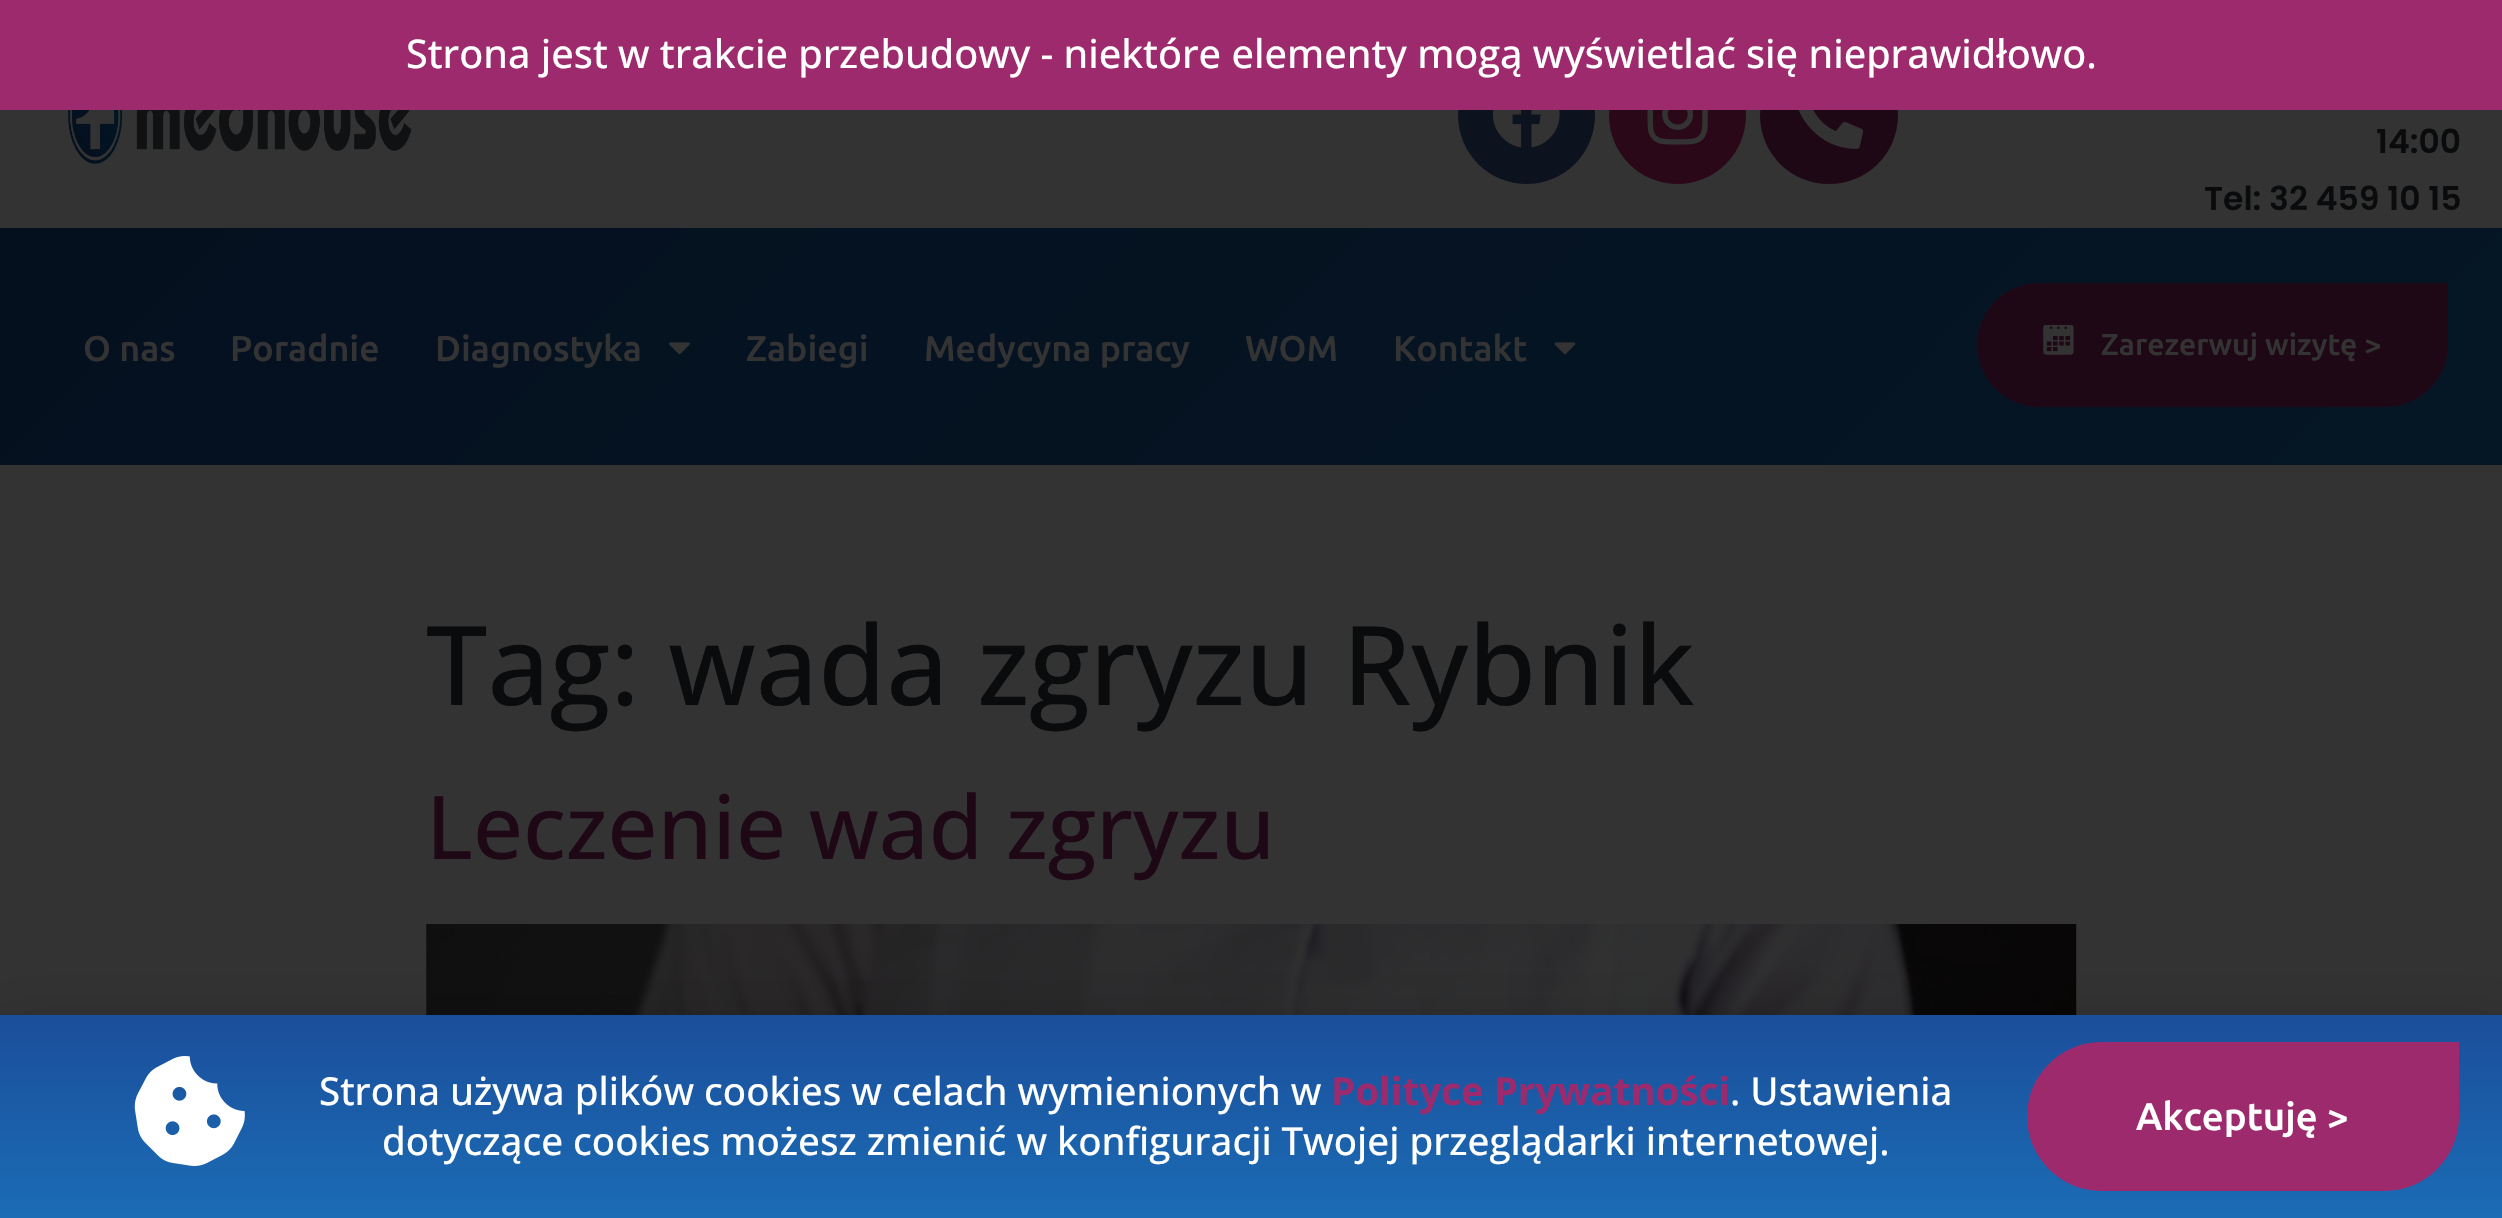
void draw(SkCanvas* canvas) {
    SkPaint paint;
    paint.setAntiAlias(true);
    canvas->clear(0xFF333333);
    paint.setColor(0xFF0C121E);
    canvas->drawCircle(1526.5f, 115.5f, 68.5f, paint);
    paint.setColor(0xFF2B0818);
    canvas->drawCircle(1677.5f, 115.5f, 68.5f, paint);
    paint.setColor(0xFF1F0816);
    canvas->drawRoundRect(SkRect::MakeXYWH(1760, 47, 138, 137), 68.5f, 68.5f, paint);
    paint.setColor(0xFF9C2A6D);
    canvas->drawRect(SkRect::MakeXYWH(0, 0, 2502, 110), paint);
    SkFont font1(fontMgr->matchFamilyStyle("Open Sans", SkFontStyle(500, SkFontStyle::kNormal_Width, SkFontStyle::kUpright_Slant)), 39.6f);
    font1.setSubpixel(true);
    paint.setColor(0xFFFFFFFF);
    canvas->drawString("Strona jest w trakcie przebudowy - niektóre elementy mogą wyświetlać się nieprawidłowo.", 406, 68, font1, paint);
    canvas->drawImageRect(SkImages::DeferredFromEncodedData(SkData::MakeFromFileName("img1.png")), SkRect::MakeXYWH(68, 110, 357, 55), SkSamplingOptions());
    canvas->drawImageRect(SkImages::DeferredFromEncodedData(SkData::MakeFromFileName("img2.png")), SkRect::MakeXYWH(1492, 110, 68, 38), SkSamplingOptions());
    canvas->drawImageRect(SkImages::DeferredFromEncodedData(SkData::MakeFromFileName("img3.png")), SkRect::MakeXYWH(1647, 110, 61, 35), SkSamplingOptions());
    canvas->drawImageRect(SkImages::DeferredFromEncodedData(SkData::MakeFromFileName("img4.png")), SkRect::MakeXYWH(1798, 110, 66, 39), SkSamplingOptions());
    SkFont font2(fontMgr->matchFamilyStyle("Poppins", SkFontStyle(600, SkFontStyle::kNormal_Width, SkFontStyle::kUpright_Slant)), 33);
    font2.setSubpixel(true);
    paint.setColor(0xFF0A0B0C);
    canvas->drawString("14:00", 2376, 153, font2, paint);
    canvas->drawString("Tel: 32 459 10 15", 2204, 210, font2, paint);
    {
        const SkColor colors[] = {0xFF05101F, 0xFF051624};
        const float stops[] = {0, 1};
        const SkPoint ends[] = {{566, -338}, {1936, 1031}};
        paint.setShader(SkGradientShader::MakeLinear(ends, colors, stops, 2, SkTileMode::kClamp));
        paint.setAlpha(255);
    }
    canvas->drawRect(SkRect::MakeXYWH(0, 228, 2502, 237), paint);
    SkFont font3(fontMgr->matchFamilyStyle("Ubuntu", SkFontStyle(500, SkFontStyle::kNormal_Width, SkFontStyle::kUpright_Slant)), 35.75f);
    font3.setSubpixel(true);
    paint.setShader(nullptr);
    paint.setColor(0xFF333333);
    canvas->drawString("O nas", 83, 361, font3, paint);
    canvas->drawString("Poradnie", 230, 361, font3, paint);
    canvas->drawString("Diagnostyka", 435, 361, font3, paint);
    canvas->drawImageRect(SkImages::DeferredFromEncodedData(SkData::MakeFromFileName("img5.png")), SkRect::MakeXYWH(669, 342, 21, 13), SkSamplingOptions());
    canvas->drawString("Zabiegi", 746, 361, font3, paint);
    canvas->drawString("Medycyna pracy", 924, 361, font3, paint);
    canvas->drawString("WOM", 1245, 361, font3, paint);
    canvas->drawString("Kontakt", 1393, 361, font3, paint);
    canvas->drawImageRect(SkImages::DeferredFromEncodedData(SkData::MakeFromFileName("img6.png")), SkRect::MakeXYWH(1554, 342, 22, 13), SkSamplingOptions());
    paint.setColor(0xFF1F0816);
    canvas->drawPath(SkPathBuilder().moveTo(2039, 283).lineTo(2448, 283).lineTo(2448, 345).cubicTo(2448, 379, 2420, 407, 2386, 407).lineTo(2039, 407).cubicTo(2005, 407, 1977, 379, 1977, 345).cubicTo(1977, 311, 2005, 283, 2039, 283).close().detach(), paint);
    canvas->drawImageRect(SkImages::DeferredFromEncodedData(SkData::MakeFromFileName("img7.png")), SkRect::MakeXYWH(2043, 325, 31, 30), SkSamplingOptions());
    SkFont font4(fontMgr->matchFamilyStyle("Ubuntu", SkFontStyle(500, SkFontStyle::kNormal_Width, SkFontStyle::kUpright_Slant)), 30.25f);
    font4.setSubpixel(true);
    paint.setColor(0xFF333333);
    canvas->drawString("Zarezerwuj wizytę >", 2101, 355, font4, paint);
    SkFont font5(fontMgr->matchFamilyStyle("Open Sans", SkFontStyle(500, SkFontStyle::kNormal_Width, SkFontStyle::kUpright_Slant)), 110);
    font5.setSubpixel(true);
    paint.setColor(0xFF0A0B0C);
    canvas->drawString("Tag: wada zgryzu Rybnik", 426, 705, font5, paint);
    SkFont font6(fontMgr->matchFamilyStyle("Open Sans", SkFontStyle(500, SkFontStyle::kNormal_Width, SkFontStyle::kUpright_Slant)), 88);
    font6.setSubpixel(true);
    paint.setColor(0xFF1F0816);
    canvas->drawString("Leczenie wad zgryzu", 426, 859, font6, paint);
    canvas->drawImageRect(SkImages::DeferredFromEncodedData(SkData::MakeFromFileName("img8.png")), SkRect::MakeXYWH(426, 924, 1651, 91), SkSamplingOptions());
    paint.setColor(0x33000000);
    paint.setMaskFilter(SkMaskFilter::MakeBlur(kNormal_SkBlurStyle, 31.5f));
    canvas->drawRect(SkRect::MakeXYWH(-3, 1029, 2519, 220), paint);
    paint.setMaskFilter(nullptr);
    {
        const SkColor colors[] = {0xFF1B4E9B, 0xFF1B6CB5};
        const float stops[] = {0, 1};
        const SkPoint ends[] = {{1251, 1015}, {1251, 1218}};
        paint.setShader(SkGradientShader::MakeLinear(ends, colors, stops, 2, SkTileMode::kClamp));
        paint.setAlpha(255);
    }
    canvas->drawRect(SkRect::MakeXYWH(0, 1015, 2502, 203), paint);
    canvas->drawImageRect(SkImages::DeferredFromEncodedData(SkData::MakeFromFileName("img9.png")), SkRect::MakeXYWH(134, 1056, 111, 110), SkSamplingOptions());
    SkFont font7(fontMgr->matchFamilyStyle("Open Sans", SkFontStyle(500, SkFontStyle::kNormal_Width, SkFontStyle::kUpright_Slant)), 38.5f);
    font7.setSubpixel(true);
    paint.setShader(nullptr);
    paint.setColor(0xFFFFFFFF);
    canvas->drawString("Strona używa plików cookies w celach wymienionych w", 319, 1105, font7, paint);
    SkFont font8(fontMgr->matchFamilyStyle("Open Sans", SkFontStyle::Bold()), 38.5f);
    font8.setSubpixel(true);
    paint.setColor(0xFF9C2A6D);
    canvas->drawString("Polityce Prywatności", 1331, 1105, font8, paint);
    paint.setColor(0xFFFFFFFF);
    canvas->drawString(". Ustawienia", 1730, 1105, font7, paint);
    canvas->drawString("dotyczące cookies możesz zmienić w konfiguracji Twojej przeglądarki internetowej.", 382, 1155, font7, paint);
    paint.setColor(0xFF9C2A6D);
    canvas->drawPath(SkPathBuilder().moveTo(2101.5f, 1042).lineTo(2459, 1042).lineTo(2459, 1116.5f).cubicTo(2459, 1157.5f, 2425.5f, 1191, 2384.5f, 1191).lineTo(2101.5f, 1191).cubicTo(2060.5f, 1191, 2027, 1157.5f, 2027, 1116.5f).cubicTo(2027, 1075.5f, 2060.5f, 1042, 2101.5f, 1042).close().detach(), paint);
    SkFont font9(fontMgr->matchFamilyStyle("Ubuntu", SkFontStyle(500, SkFontStyle::kNormal_Width, SkFontStyle::kUpright_Slant)), 38.5f);
    font9.setSubpixel(true);
    paint.setColor(0xFFFFFFFF);
    canvas->drawString("Akceptuję >", 2136, 1130, font9, paint);
}
